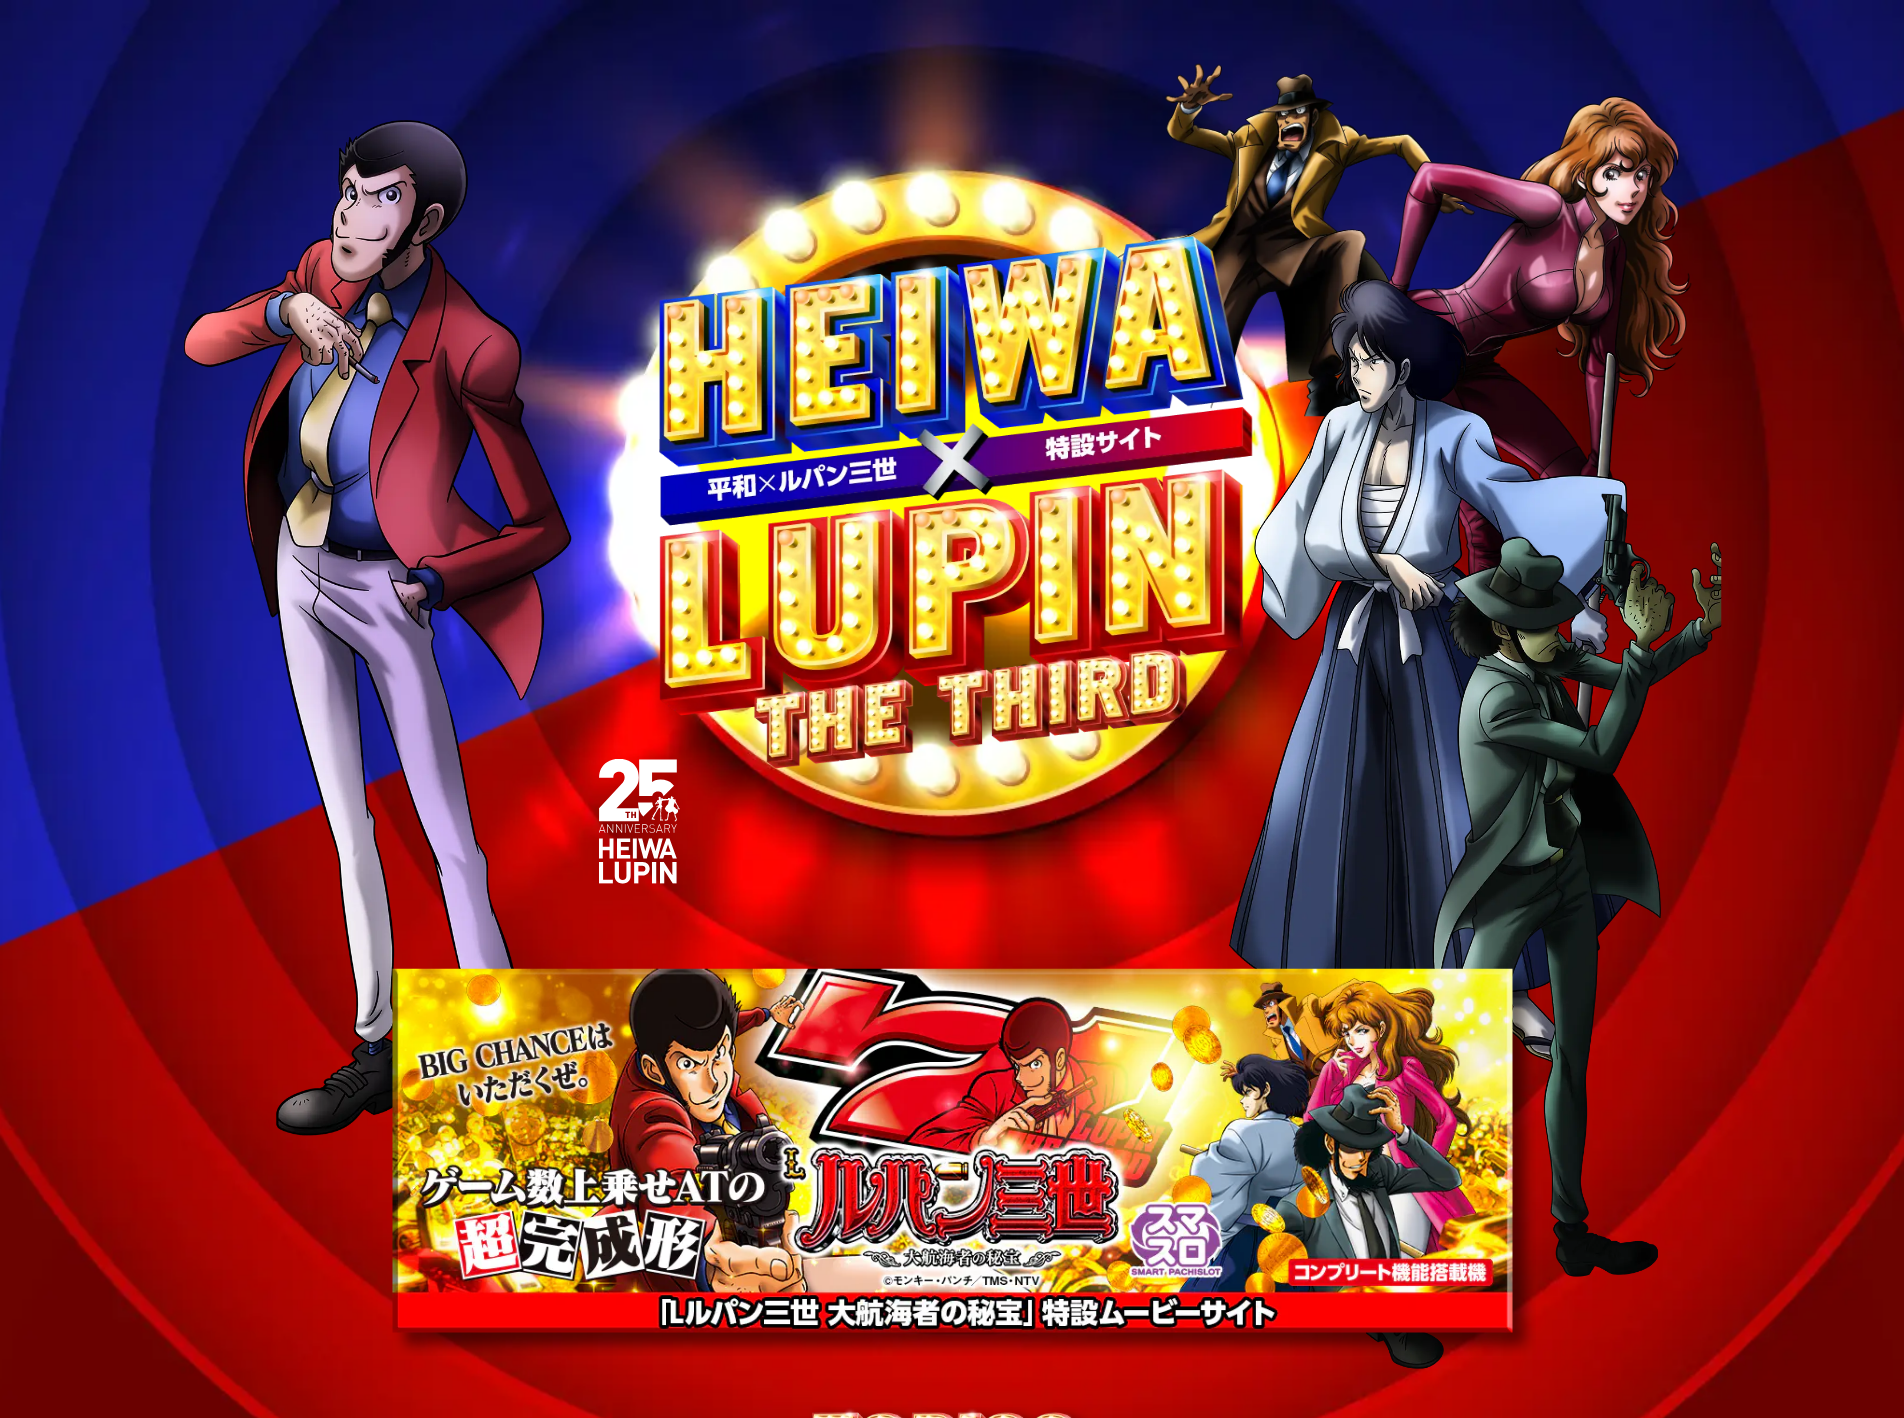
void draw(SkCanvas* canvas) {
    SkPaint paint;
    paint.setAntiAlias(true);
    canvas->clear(0xFFFFFFFF);
    canvas->drawImageRect(SkImages::DeferredFromEncodedData(SkData::MakeFromFileName("img1.png")), SkRect::MakeXYWH(0, 0, 1904, 1418), SkSamplingOptions());
    canvas->drawImageRect(SkImages::DeferredFromEncodedData(SkData::MakeFromFileName("img2.png")), SkRect::MakeXYWH(183, 120, 389, 1016), SkSamplingOptions());
    canvas->drawImageRect(SkImages::DeferredFromEncodedData(SkData::MakeFromFileName("img3.png")), SkRect::MakeXYWH(1117, 63, 358, 354), SkSamplingOptions());
    canvas->drawImageRect(SkImages::DeferredFromEncodedData(SkData::MakeFromFileName("img4.png")), SkRect::MakeXYWH(1388, 96, 304, 479), SkSamplingOptions());
    canvas->drawImageRect(SkImages::DeferredFromEncodedData(SkData::MakeFromFileName("img5.png")), SkRect::MakeXYWH(1229, 278, 399, 785), SkSamplingOptions());
    canvas->drawImageRect(SkImages::DeferredFromEncodedData(SkData::MakeFromFileName("img6.png")), SkRect::MakeXYWH(1365, 493, 357, 876), SkSamplingOptions());
    canvas->drawImageRect(SkImages::DeferredFromEncodedData(SkData::MakeFromFileName("img8.png")), SkRect::MakeXYWH(599, 759, 81, 125), SkSamplingOptions());
    canvas->drawImageRect(SkImages::DeferredFromEncodedData(SkData::MakeFromFileName("img7.png")), SkRect::MakeXYWH(659, 228, 594, 541), SkSamplingOptions());
    canvas->drawImageRect(SkImages::DeferredFromEncodedData(SkData::MakeFromFileName("img9.png")), SkRect::MakeXYWH(392, 968, 1144, 388), SkSamplingOptions());
    canvas->drawImageRect(SkImages::DeferredFromEncodedData(SkData::MakeFromFileName("img10.png")), SkRect::MakeXYWH(809, 1407, 279, 11), SkSamplingOptions());
}
